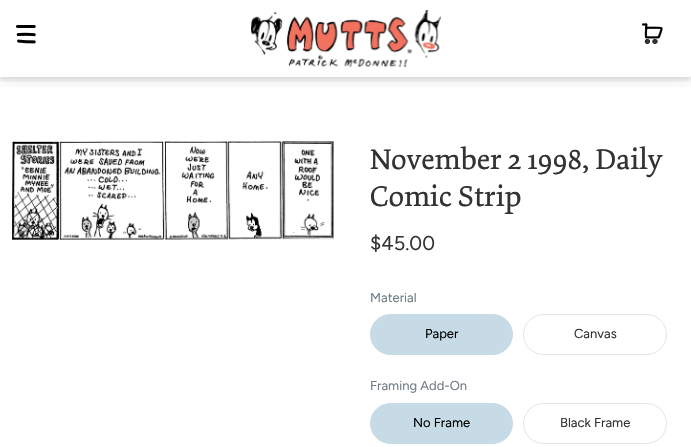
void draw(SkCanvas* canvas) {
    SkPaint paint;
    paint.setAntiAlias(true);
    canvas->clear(0xFFFFFFFF);
    canvas->save();
    canvas->clipRect(SkRect::MakeXYWH(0, 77, 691, 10));
    paint.setColor(0x0F000000);
    paint.setMaskFilter(SkMaskFilter::MakeBlur(kNormal_SkBlurStyle, 10));
    canvas->drawRect(SkRect::MakeXYWH(0, 6, 691, 77), paint);
    paint.setMaskFilter(nullptr);
    canvas->restore();
    canvas->save();
    canvas->clipRect(SkRect::MakeXYWH(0, 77, 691, 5));
    paint.setColor(0x1F000000);
    paint.setMaskFilter(SkMaskFilter::MakeBlur(kNormal_SkBlurStyle, 2.5f));
    canvas->drawRect(SkRect::MakeXYWH(0, 3, 691, 77), paint);
    paint.setMaskFilter(nullptr);
    canvas->restore();
    canvas->drawImageRect(SkImages::DeferredFromEncodedData(SkData::MakeFromFileName("img1.png")), SkRect::MakeXYWH(16, 25, 20, 19), SkSamplingOptions());
    canvas->drawImageRect(SkImages::DeferredFromEncodedData(SkData::MakeFromFileName("img2.png")), SkRect::MakeXYWH(251, 10, 190, 57), SkSamplingOptions());
    canvas->drawImageRect(SkImages::DeferredFromEncodedData(SkData::MakeFromFileName("img3.png")), SkRect::MakeXYWH(641, 23, 22, 21), SkSamplingOptions());
    paint.setColor(0xFFD6D6D6);
    canvas->drawRect(SkRect::MakeXYWH(12, 141, 322, 99), paint);
    canvas->drawImageRect(SkImages::DeferredFromEncodedData(SkData::MakeFromFileName("img4.png")), SkRect::MakeXYWH(12, 141, 322, 99), SkSamplingOptions());
    SkFont font1(fontMgr->matchFamilyStyle("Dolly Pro", SkFontStyle::Normal()), 30);
    font1.setSubpixel(true);
    paint.setColor(0xFF333333);
    canvas->drawString("November 2 1998, Daily", 370, 169, font1, paint);
    canvas->drawString("Comic Strip", 370, 206, font1, paint);
    SkFont font2(fontMgr->matchFamilyStyle("Figtree", SkFontStyle::Normal()), 20);
    font2.setSubpixel(true);
    canvas->drawString("$45.00", 370, 250, font2, paint);
    SkFont font3(fontMgr->matchFamilyStyle("Figtree", SkFontStyle::Normal()), 13);
    font3.setSubpixel(true);
    paint.setColor(0xFF717D87);
    canvas->drawString("Material", 370, 302, font3, paint);
    paint.setColor(0xFFC7DBE6);
    canvas->drawRoundRect(SkRect::MakeXYWH(370.5f, 314.5f, 142, 40), 20, 20, paint);
    paint.setStyle(SkPaint::kStroke_Style);
    paint.setStrokeWidth(1);
    canvas->drawRoundRect(SkRect::MakeXYWH(370.5f, 314.5f, 142, 40), 20, 20, paint);
    paint.setStyle(SkPaint::kFill_Style);
    paint.setColor(0xFF000000);
    canvas->drawString("Paper", 425, 338, font3, paint);
    paint.setStyle(SkPaint::kStroke_Style);
    paint.setColor(0xFFE4E4E4);
    canvas->drawRoundRect(SkRect::MakeXYWH(523.5f, 314.5f, 143, 40), 20, 20, paint);
    paint.setStyle(SkPaint::kFill_Style);
    paint.setColor(0xFF333333);
    canvas->drawString("Canvas", 574, 338, font3, paint);
    paint.setColor(0xFF717D87);
    canvas->drawString("Framing Add-On", 370, 390, font3, paint);
    paint.setColor(0xFFC7DBE6);
    canvas->drawRoundRect(SkRect::MakeXYWH(370.5f, 403.5f, 142, 40), 20, 20, paint);
    paint.setStyle(SkPaint::kStroke_Style);
    canvas->drawRoundRect(SkRect::MakeXYWH(370.5f, 403.5f, 142, 40), 20, 20, paint);
    paint.setStyle(SkPaint::kFill_Style);
    paint.setColor(0xFF000000);
    canvas->drawString("No Frame", 413, 427, font3, paint);
    paint.setStyle(SkPaint::kStroke_Style);
    paint.setColor(0xFFE4E4E4);
    canvas->drawRoundRect(SkRect::MakeXYWH(523.5f, 403.5f, 143, 40), 20, 20, paint);
    paint.setStyle(SkPaint::kFill_Style);
    paint.setColor(0xFF333333);
    canvas->drawString("Black Frame", 560, 427, font3, paint);
}
